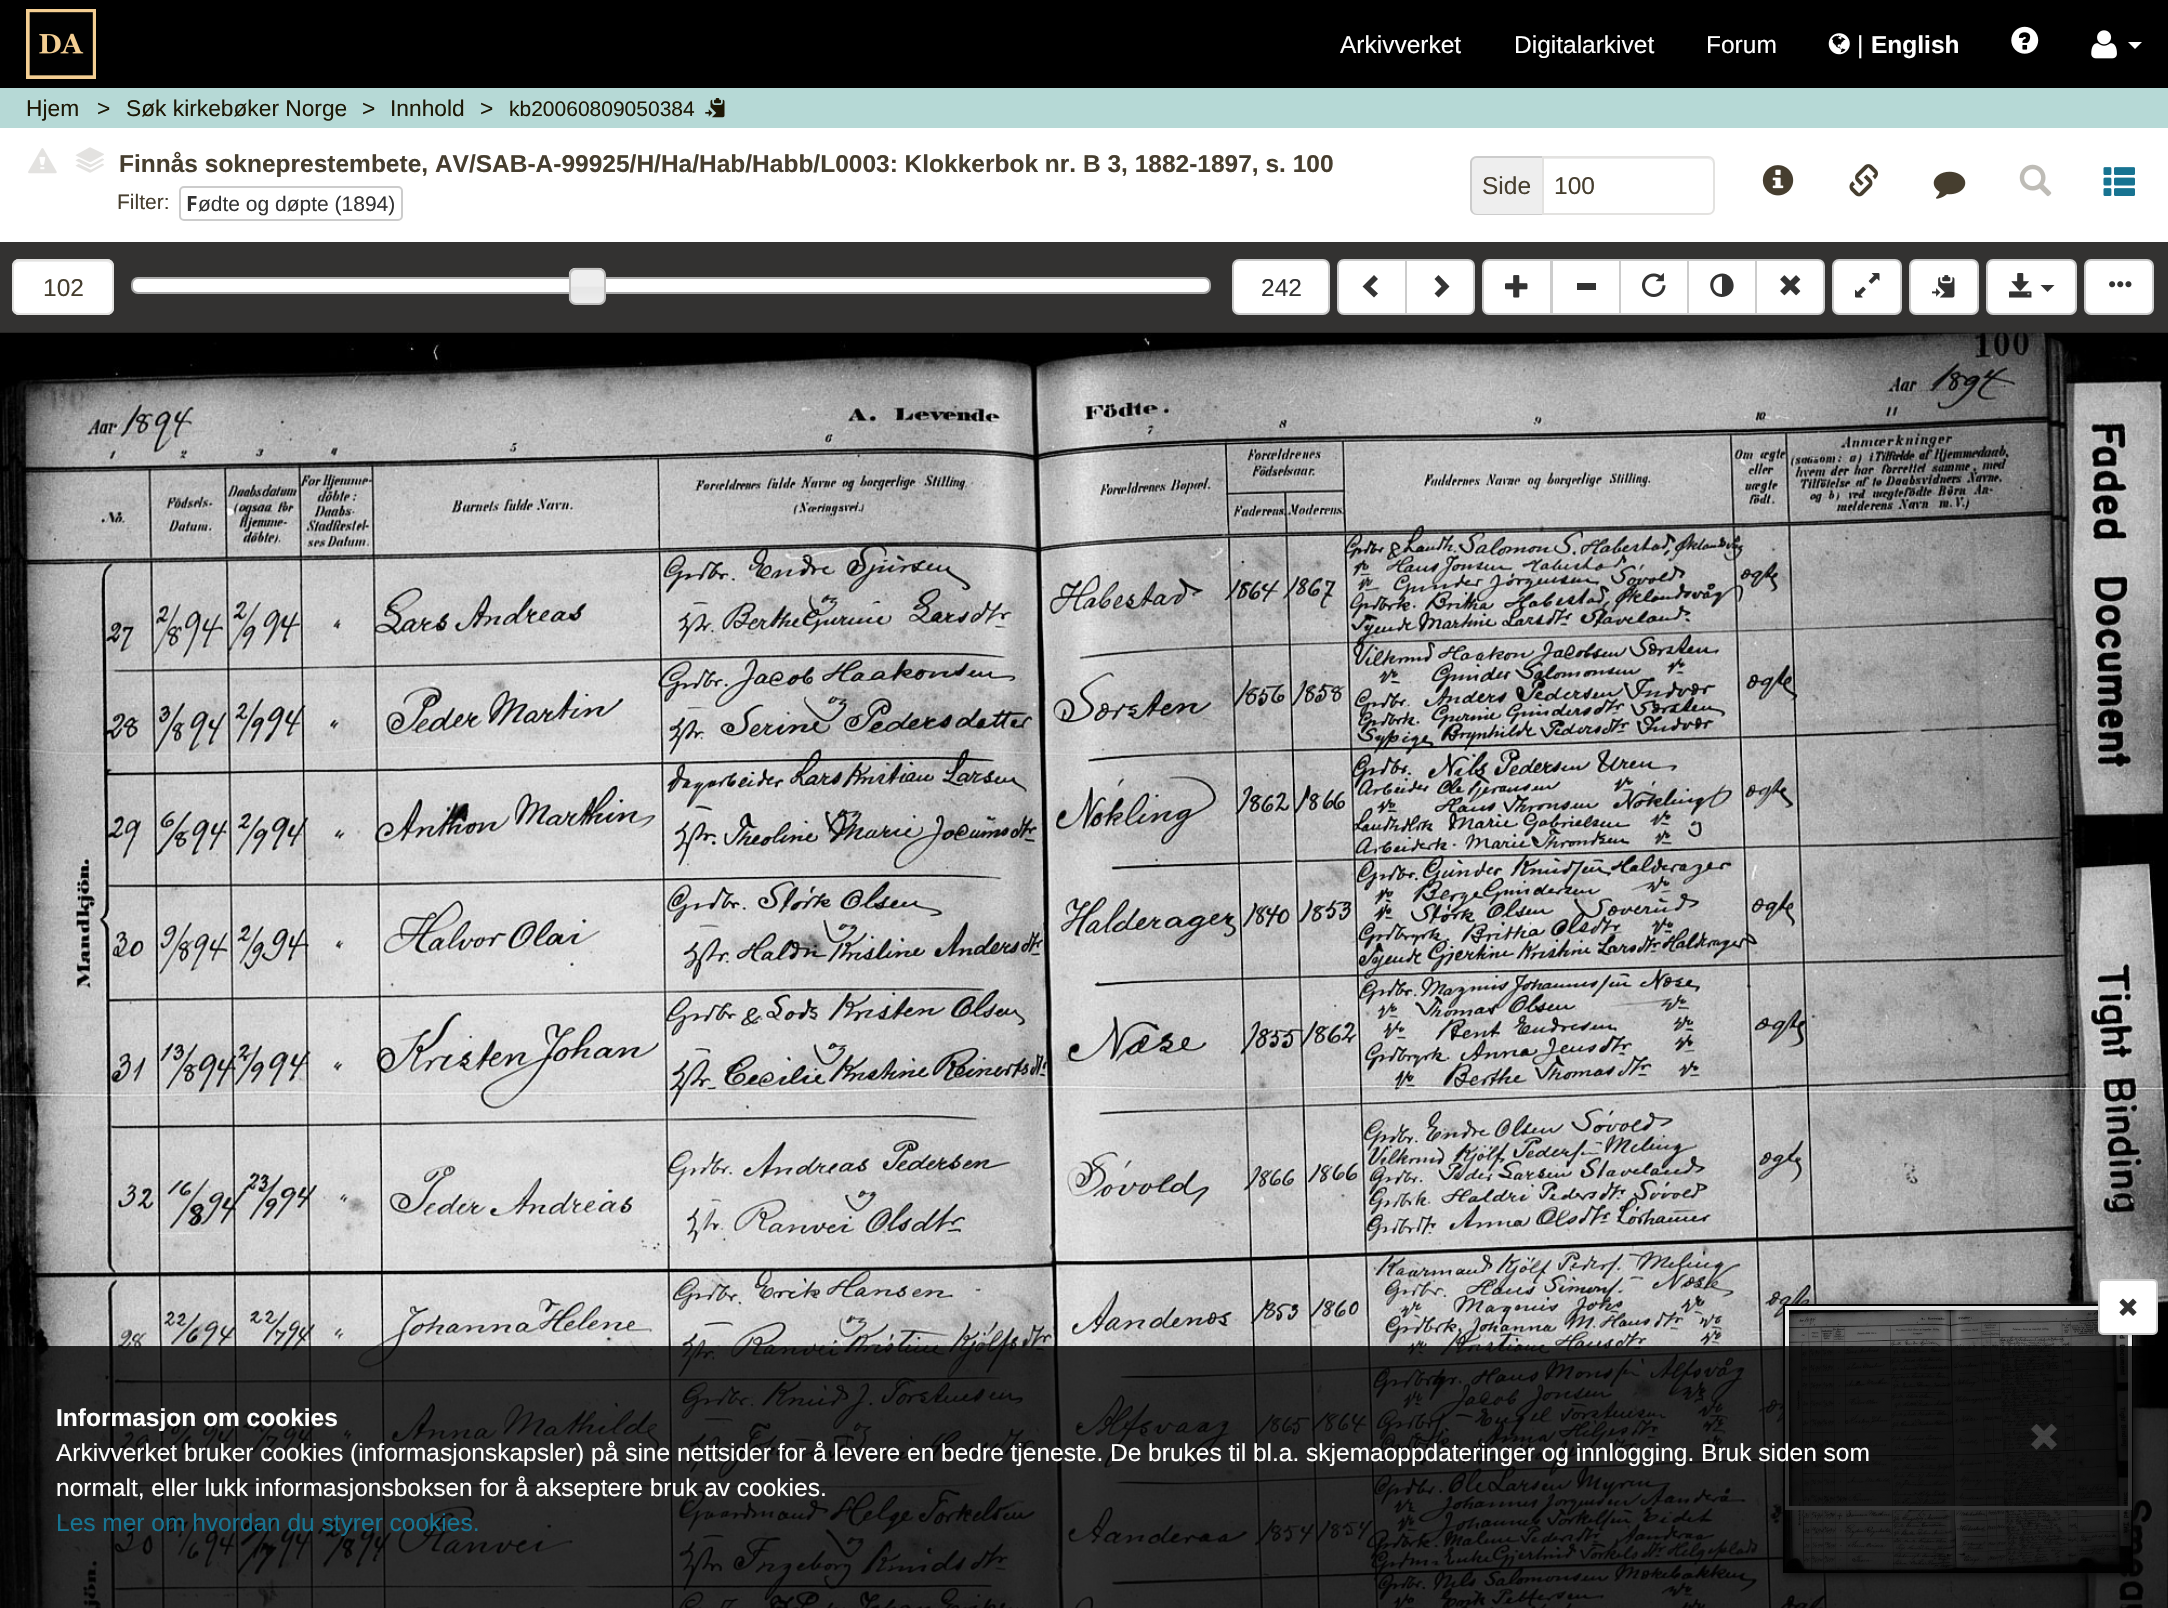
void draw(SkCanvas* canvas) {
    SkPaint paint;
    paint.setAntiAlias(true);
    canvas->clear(0xFFB6D9D6);
    paint.setColor(0xFF000000);
    canvas->drawRect(SkRect::MakeXYWH(0, 0, 2168, 88), paint);
    canvas->drawImageRect(SkImages::DeferredFromEncodedData(SkData::MakeFromFileName("img1.png")), SkRect::MakeXYWH(26, 9, 70, 70), SkSamplingOptions());
    SkFont font1(fontMgr->matchFamilyStyle("Liberation Sans", SkFontStyle::Normal()), 24.5f);
    font1.setSubpixel(true);
    paint.setColor(0xFFFFFFFF);
    canvas->drawString("Arkivverket", 1340, 53, font1, paint);
    canvas->drawString("Digitalarkivet", 1514, 53, font1, paint);
    canvas->drawString("Forum", 1706, 53, font1, paint);
    canvas->drawImageRect(SkImages::DeferredFromEncodedData(SkData::MakeFromFileName("img2.png")), SkRect::MakeXYWH(1828, 33, 22, 22), SkSamplingOptions());
    canvas->drawString("|", 1857, 53, font1, paint);
    SkFont font2(fontMgr->matchFamilyStyle("Liberation Sans", SkFontStyle::Bold()), 24.5f);
    font2.setSubpixel(true);
    canvas->drawString("English", 1871, 53, font2, paint);
    canvas->drawImageRect(SkImages::DeferredFromEncodedData(SkData::MakeFromFileName("img3.png")), SkRect::MakeXYWH(2011, 26, 28, 28), SkSamplingOptions());
    canvas->drawImageRect(SkImages::DeferredFromEncodedData(SkData::MakeFromFileName("img4.png")), SkRect::MakeXYWH(2091, 30, 26, 29), SkSamplingOptions());
    canvas->drawPath(SkPathBuilder().moveTo(2128, 42).lineTo(2142, 42).lineTo(2135, 49).close().detach(), paint);
    SkFont font3(fontMgr->matchFamilyStyle("Liberation Sans", SkFontStyle::Normal()), 22.75f);
    font3.setSubpixel(true);
    paint.setColor(0xFF1D1705);
    canvas->drawString("Hjem", 26, 116, font3, paint);
    canvas->drawString(">", 97, 116, font3, paint);
    canvas->drawString("Søk kirkebøker Norge", 126, 116, font3, paint);
    canvas->drawString(">", 362, 116, font3, paint);
    canvas->drawString("Innhold", 390, 116, font3, paint);
    canvas->drawString(">", 480, 116, font3, paint);
    SkFont font4(fontMgr->matchFamilyStyle("Liberation Sans", SkFontStyle::Normal()), 21);
    font4.setSubpixel(true);
    canvas->drawString("kb20060809050384", 509, 116, font4, paint);
    canvas->drawImageRect(SkImages::DeferredFromEncodedData(SkData::MakeFromFileName("img5.png")), SkRect::MakeXYWH(705, 98, 20, 20), SkSamplingOptions());
    paint.setColor(0xFFFFFFFF);
    canvas->drawRect(SkRect::MakeXYWH(0, 128, 2168, 114), paint);
    canvas->drawImageRect(SkImages::DeferredFromEncodedData(SkData::MakeFromFileName("img6.png")), SkRect::MakeXYWH(28, 148, 29, 26), SkSamplingOptions());
    canvas->drawImageRect(SkImages::DeferredFromEncodedData(SkData::MakeFromFileName("img11.png")), SkRect::MakeXYWH(75, 163, 29, 10), SkSamplingOptions());
    canvas->drawImageRect(SkImages::DeferredFromEncodedData(SkData::MakeFromFileName("img10.png")), SkRect::MakeXYWH(79, 161, 23, 9), SkSamplingOptions());
    canvas->drawImageRect(SkImages::DeferredFromEncodedData(SkData::MakeFromFileName("img9.png")), SkRect::MakeXYWH(75, 158, 29, 10), SkSamplingOptions());
    canvas->drawImageRect(SkImages::DeferredFromEncodedData(SkData::MakeFromFileName("img8.png")), SkRect::MakeXYWH(78, 155, 24, 10), SkSamplingOptions());
    canvas->drawImageRect(SkImages::DeferredFromEncodedData(SkData::MakeFromFileName("img7.png")), SkRect::MakeXYWH(75, 147, 29, 15), SkSamplingOptions());
    paint.setColor(0xFF463E2F);
    canvas->drawString("Finnås sokneprestembete, AV/SAB-A-99925/H/Ha/Hab/Habb/L0003: Klokkerbok nr. B 3, 1882-1897, s. 100", 119, 172, font2, paint);
    canvas->drawString("Filter:", 117, 209, font4, paint);
    paint.setStyle(SkPaint::kStroke_Style);
    paint.setStrokeWidth(2);
    paint.setColor(0xFFCCCCCC);
    canvas->drawRoundRect(SkRect::MakeXYWH(180, 187, 222, 33), 4, 4, paint);
    SkFont font5(fontMgr->matchFamilyStyle("Noto Sans", SkFontStyle::Bold()), 21);
    font5.setSubpixel(true);
    paint.setStyle(SkPaint::kFill_Style);
    paint.setColor(0xFF333333);
    canvas->drawString("F", 186, 211, font5, paint);
    canvas->drawString("ødte og døpte (1894)", 198, 211, font4, paint);
    paint.setColor(0xFFEEEEEE);
    canvas->drawPath(SkPathBuilder().moveTo(1477, 156).lineTo(1542, 156).lineTo(1542, 215).lineTo(1477, 215).cubicTo(1473, 215, 1470, 212, 1470, 208).lineTo(1470, 163).cubicTo(1470, 159, 1473, 156, 1477, 156).close().detach(), paint);
    paint.setColor(0xFFCCCCCC);
    canvas->drawPath(SkPathBuilder(SkPathFillType::kEvenOdd).moveTo(1477, 156).lineTo(1542, 156).lineTo(1542, 215).lineTo(1477, 215).cubicTo(1473, 215, 1470, 212, 1470, 208).lineTo(1470, 163).cubicTo(1470, 159, 1473, 156, 1477, 156).close().moveTo(1477, 158).lineTo(1542, 158).lineTo(1542, 214).lineTo(1477, 214).cubicTo(1474, 214, 1472, 211, 1472, 208).lineTo(1472, 163).cubicTo(1472, 160, 1474, 158, 1477, 158).close().detach(), paint);
    paint.setColor(0xFF463E2F);
    canvas->drawString("Side", 1482, 194, font1, paint);
    paint.setColor(0xFFECECEC);
    canvas->drawPath(SkPathBuilder().moveTo(1544, 159).lineTo(1708, 159).cubicTo(1711, 159, 1713, 162, 1713, 164).lineTo(1713, 163).cubicTo(1713, 160, 1711, 158, 1708, 158).lineTo(1544, 158).close().detach(), paint);
    paint.setStyle(SkPaint::kStroke_Style);
    paint.setColor(0xFFE3E2E0);
    canvas->drawPath(SkPathBuilder().moveTo(1543, 157).lineTo(1708, 157).cubicTo(1711.5f, 157, 1714, 159.5f, 1714, 163).lineTo(1714, 208).cubicTo(1714, 211.5f, 1711.5f, 214, 1708, 214).lineTo(1543, 214).close().detach(), paint);
    paint.setStyle(SkPaint::kFill_Style);
    paint.setColor(0xFF463E2F);
    canvas->drawString("100", 1554, 194, font1, paint);
    canvas->drawImageRect(SkImages::DeferredFromEncodedData(SkData::MakeFromFileName("img12.png")), SkRect::MakeXYWH(1762, 165, 32, 31), SkSamplingOptions());
    canvas->drawImageRect(SkImages::DeferredFromEncodedData(SkData::MakeFromFileName("img13.png")), SkRect::MakeXYWH(1849, 164, 29, 33), SkSamplingOptions());
    canvas->drawImageRect(SkImages::DeferredFromEncodedData(SkData::MakeFromFileName("img14.png")), SkRect::MakeXYWH(1933, 171, 33, 28), SkSamplingOptions());
    canvas->drawImageRect(SkImages::DeferredFromEncodedData(SkData::MakeFromFileName("img15.png")), SkRect::MakeXYWH(2019, 164, 33, 33), SkSamplingOptions());
    canvas->drawImageRect(SkImages::DeferredFromEncodedData(SkData::MakeFromFileName("img16.png")), SkRect::MakeXYWH(2103, 167, 32, 29), SkSamplingOptions());
    paint.setColor(0xFF333231);
    canvas->drawRect(SkRect::MakeXYWH(0, 242, 2168, 91), paint);
    paint.setColor(0xFFFFFFFF);
    canvas->drawRoundRect(SkRect::MakeXYWH(12, 259, 102, 56), 7, 7, paint);
    paint.setColor(0xFFECECEC);
    canvas->drawPath(SkPathBuilder().moveTo(19, 262).lineTo(107, 262).cubicTo(110, 262, 112, 265, 112, 268).cubicTo(112, 257, 101, 261, 92, 261).lineTo(34, 261).cubicTo(25, 261, 14, 257, 14, 268).cubicTo(14, 265, 16, 262, 19, 262).close().detach(), paint);
    paint.setStyle(SkPaint::kStroke_Style);
    paint.setColor(0xFFE3E2E0);
    canvas->drawRoundRect(SkRect::MakeXYWH(13, 260, 100, 54), 6, 6, paint);
    paint.setStyle(SkPaint::kFill_Style);
    paint.setColor(0xFF463E2F);
    canvas->drawString("102", 43, 296, font1, paint);
    paint.setColor(0xFFFFFFFF);
    canvas->drawRoundRect(SkRect::MakeXYWH(132, 278, 1078, 15), 6, 6, paint);
    paint.setStyle(SkPaint::kStroke_Style);
    paint.setColor(0xFFAAAAAA);
    canvas->drawRoundRect(SkRect::MakeXYWH(132, 278, 1078, 15), 6, 6, paint);
    canvas->drawImageRect(SkImages::DeferredFromEncodedData(SkData::MakeFromFileName("img17.png")), SkRect::MakeXYWH(568, 267, 38, 38), SkSamplingOptions());
    paint.setColor(0xFFBFBEBD);
    canvas->drawRoundRect(SkRect::MakeXYWH(570, 269, 35, 35), 6, 6, paint);
    paint.setStyle(SkPaint::kFill_Style);
    paint.setColor(0xFFFFFFFF);
    canvas->drawRoundRect(SkRect::MakeXYWH(1233, 260, 96, 54), 6, 6, paint);
    paint.setStyle(SkPaint::kStroke_Style);
    paint.setColor(0xFFCCCCCC);
    canvas->drawRoundRect(SkRect::MakeXYWH(1233, 260, 96, 54), 6, 6, paint);
    paint.setStyle(SkPaint::kFill_Style);
    paint.setColor(0xFF333333);
    canvas->drawString("242", 1261, 296, font1, paint);
    paint.setColor(0xFFFFFFFF);
    canvas->drawPath(SkPathBuilder().moveTo(1344, 260).lineTo(1406, 260).lineTo(1406, 314).lineTo(1344, 314).cubicTo(1340.5f, 314, 1338, 311.5f, 1338, 308).lineTo(1338, 266).cubicTo(1338, 262.5f, 1340.5f, 260, 1344, 260).close().detach(), paint);
    paint.setStyle(SkPaint::kStroke_Style);
    paint.setColor(0xFFCCCCCC);
    canvas->drawPath(SkPathBuilder().moveTo(1344, 260).lineTo(1406, 260).lineTo(1406, 314).lineTo(1344, 314).cubicTo(1340.5f, 314, 1338, 311.5f, 1338, 308).lineTo(1338, 266).cubicTo(1338, 262.5f, 1340.5f, 260, 1344, 260).close().detach(), paint);
    paint.setStyle(SkPaint::kFill_Style);
    paint.setColor(0xFF333333);
    canvas->drawPath(SkPathBuilder().moveTo(1378, 279).lineTo(1370.5f, 286.5f).lineTo(1378, 293.5f).lineTo(1374, 297.5f).lineTo(1362.5f, 286.5f).lineTo(1374, 275).close().detach(), paint);
    paint.setColor(0xFFFFFFFF);
    canvas->drawPath(SkPathBuilder().moveTo(1406, 260).lineTo(1468, 260).cubicTo(1471.5f, 260, 1474, 262.5f, 1474, 266).lineTo(1474, 308).cubicTo(1474, 311.5f, 1471.5f, 314, 1468, 314).lineTo(1406, 314).close().detach(), paint);
    paint.setStyle(SkPaint::kStroke_Style);
    paint.setColor(0xFFCCCCCC);
    canvas->drawPath(SkPathBuilder().moveTo(1406, 260).lineTo(1468, 260).cubicTo(1471.5f, 260, 1474, 262.5f, 1474, 266).lineTo(1474, 308).cubicTo(1474, 311.5f, 1471.5f, 314, 1468, 314).lineTo(1406, 314).close().detach(), paint);
    paint.setStyle(SkPaint::kFill_Style);
    paint.setColor(0xFF333333);
    canvas->drawPath(SkPathBuilder().moveTo(1449.5f, 286.5f).lineTo(1438.5f, 297.5f).lineTo(1434.5f, 293.5f).lineTo(1441.5f, 286.5f).lineTo(1434.5f, 279).lineTo(1438.5f, 275).close().detach(), paint);
    paint.setColor(0xFFFFFFFF);
    canvas->drawPath(SkPathBuilder().moveTo(1489, 260).lineTo(1551, 260).lineTo(1551, 314).lineTo(1489, 314).cubicTo(1485.5f, 314, 1483, 311.5f, 1483, 308).lineTo(1483, 266).cubicTo(1483, 262.5f, 1485.5f, 260, 1489, 260).close().detach(), paint);
    paint.setStyle(SkPaint::kStroke_Style);
    paint.setColor(0xFFCCCCCC);
    canvas->drawPath(SkPathBuilder().moveTo(1489, 260).lineTo(1551, 260).lineTo(1551, 314).lineTo(1489, 314).cubicTo(1485.5f, 314, 1483, 311.5f, 1483, 308).lineTo(1483, 266).cubicTo(1483, 262.5f, 1485.5f, 260, 1489, 260).close().detach(), paint);
    canvas->drawImageRect(SkImages::DeferredFromEncodedData(SkData::MakeFromFileName("img18.png")), SkRect::MakeXYWH(1505, 275, 23, 23), SkSamplingOptions());
    paint.setStyle(SkPaint::kFill_Style);
    paint.setColor(0xFFFFFFFF);
    canvas->drawRect(SkRect::MakeXYWH(1552, 260, 68, 54), paint);
    paint.setStyle(SkPaint::kStroke_Style);
    paint.setColor(0xFFCCCCCC);
    canvas->drawRect(SkRect::MakeXYWH(1552, 260, 68, 54), paint);
    paint.setStyle(SkPaint::kFill_Style);
    paint.setColor(0xFF333333);
    canvas->drawRect(SkRect::MakeXYWH(1577, 283, 19, 7), paint);
    paint.setColor(0xFFFFFFFF);
    canvas->drawRect(SkRect::MakeXYWH(1620, 260, 68, 54), paint);
    paint.setStyle(SkPaint::kStroke_Style);
    paint.setColor(0xFFCCCCCC);
    canvas->drawRect(SkRect::MakeXYWH(1620, 260, 68, 54), paint);
    canvas->drawImageRect(SkImages::DeferredFromEncodedData(SkData::MakeFromFileName("img19.png")), SkRect::MakeXYWH(1642, 273, 24, 24), SkSamplingOptions());
    paint.setStyle(SkPaint::kFill_Style);
    paint.setColor(0xFFFFFFFF);
    canvas->drawRect(SkRect::MakeXYWH(1688, 260, 68, 54), paint);
    paint.setStyle(SkPaint::kStroke_Style);
    paint.setColor(0xFFCCCCCC);
    canvas->drawRect(SkRect::MakeXYWH(1688, 260, 68, 54), paint);
    paint.setStyle(SkPaint::kFill_Style);
    paint.setColor(0xFF333333);
    canvas->drawPath(SkPathBuilder().moveTo(1717.5f, 274.5f).cubicTo(1731.5f, 268.5f, 1741, 290, 1726.5f, 296).cubicTo(1712.5f, 302, 1703, 280.5f, 1717.5f, 274.5f).close().moveTo(1722, 294).lineTo(1722, 276.5f).cubicTo(1710.5f, 276.5f, 1710.5f, 294, 1722, 294).close().detach(), paint);
    paint.setColor(0xFFFFFFFF);
    canvas->drawPath(SkPathBuilder().moveTo(1756, 260).lineTo(1818, 260).cubicTo(1821.5f, 260, 1824, 262.5f, 1824, 266).lineTo(1824, 308).cubicTo(1824, 311.5f, 1821.5f, 314, 1818, 314).lineTo(1756, 314).close().detach(), paint);
    paint.setStyle(SkPaint::kStroke_Style);
    paint.setColor(0xFFCCCCCC);
    canvas->drawPath(SkPathBuilder().moveTo(1756, 260).lineTo(1818, 260).cubicTo(1821.5f, 260, 1824, 262.5f, 1824, 266).lineTo(1824, 308).cubicTo(1824, 311.5f, 1821.5f, 314, 1818, 314).lineTo(1756, 314).close().detach(), paint);
    canvas->drawImageRect(SkImages::DeferredFromEncodedData(SkData::MakeFromFileName("img20.png")), SkRect::MakeXYWH(1780, 275, 21, 21), SkSamplingOptions());
    paint.setStyle(SkPaint::kFill_Style);
    paint.setColor(0xFFFFFFFF);
    canvas->drawRoundRect(SkRect::MakeXYWH(1833, 260, 68, 54), 6, 6, paint);
    paint.setStyle(SkPaint::kStroke_Style);
    paint.setColor(0xFFCCCCCC);
    canvas->drawRoundRect(SkRect::MakeXYWH(1833, 260, 68, 54), 6, 6, paint);
    canvas->drawImageRect(SkImages::DeferredFromEncodedData(SkData::MakeFromFileName("img21.png")), SkRect::MakeXYWH(1855, 273, 25, 25), SkSamplingOptions());
    paint.setStyle(SkPaint::kFill_Style);
    paint.setColor(0xFFFFFFFF);
    canvas->drawRoundRect(SkRect::MakeXYWH(1910, 260, 68, 54), 6, 6, paint);
    paint.setStyle(SkPaint::kStroke_Style);
    paint.setColor(0xFFCCCCCC);
    canvas->drawRoundRect(SkRect::MakeXYWH(1910, 260, 68, 54), 6, 6, paint);
    canvas->drawImageRect(SkImages::DeferredFromEncodedData(SkData::MakeFromFileName("img22.png")), SkRect::MakeXYWH(1932, 275, 23, 23), SkSamplingOptions());
    paint.setStyle(SkPaint::kFill_Style);
    paint.setColor(0xFFFFFFFF);
    canvas->drawRoundRect(SkRect::MakeXYWH(1987, 260, 89, 54), 6, 6, paint);
    paint.setStyle(SkPaint::kStroke_Style);
    paint.setColor(0xFFCCCCCC);
    canvas->drawRoundRect(SkRect::MakeXYWH(1987, 260, 89, 54), 6, 6, paint);
    canvas->drawImageRect(SkImages::DeferredFromEncodedData(SkData::MakeFromFileName("img23.png")), SkRect::MakeXYWH(2009, 273, 23, 25), SkSamplingOptions());
    paint.setStyle(SkPaint::kFill_Style);
    paint.setColor(0xFF333333);
    canvas->drawPath(SkPathBuilder().moveTo(2040.5f, 285).lineTo(2054.5f, 285).lineTo(2047.5f, 292).close().detach(), paint);
    paint.setColor(0xFFFFFFFF);
    canvas->drawRoundRect(SkRect::MakeXYWH(2085, 260, 68, 54), 6, 6, paint);
    paint.setStyle(SkPaint::kStroke_Style);
    paint.setColor(0xFFCCCCCC);
    canvas->drawRoundRect(SkRect::MakeXYWH(2085, 260, 68, 54), 6, 6, paint);
    canvas->drawImageRect(SkImages::DeferredFromEncodedData(SkData::MakeFromFileName("img24.png")), SkRect::MakeXYWH(2109, 281, 23, 7), SkSamplingOptions());
    canvas->drawImageRect(SkImages::DeferredFromEncodedData(SkData::MakeFromFileName("img25.png")), SkRect::MakeXYWH(0, 332, 2168, 1276), SkSamplingOptions());
    paint.setStyle(SkPaint::kFill_Style);
    paint.setColor(0xFF323232);
    paint.setMaskFilter(SkMaskFilter::MakeBlur(kNormal_SkBlurStyle, 4.5f));
    canvas->drawRect(SkRect::MakeXYWH(1785, 1306, 350, 269), paint);
    paint.setMaskFilter(nullptr);
    paint.setStyle(SkPaint::kStroke_Style);
    paint.setColor(0xFF000000);
    canvas->drawRect(SkRect::MakeXYWH(1784, 1305, 348, 267), paint);
    canvas->drawImageRect(SkImages::DeferredFromEncodedData(SkData::MakeFromFileName("img27.png")), SkRect::MakeXYWH(1785, 1305, 347, 267), SkSamplingOptions());
    paint.setStyle(SkPaint::kFill_Style);
    paint.setColor(0x80000000);
    canvas->drawRect(SkRect::MakeXYWH(1785, 1306, 347, 204), paint);
    paint.setStyle(SkPaint::kStroke_Style);
    paint.setStrokeWidth(4);
    paint.setColor(0xE6FFFFFF);
    canvas->drawRect(SkRect::MakeXYWH(1787, 1308, 343, 200), paint);
    paint.setStyle(SkPaint::kFill_Style);
    paint.setColor(0x1A000000);
    paint.setMaskFilter(SkMaskFilter::MakeBlur(kNormal_SkBlurStyle, 1));
    canvas->drawRoundRect(SkRect::MakeXYWH(2098, 1281, 60, 56), 5, 5, paint);
    paint.setMaskFilter(nullptr);
    paint.setColor(0xFFFFFFFF);
    canvas->drawRoundRect(SkRect::MakeXYWH(2099, 1280, 58, 54), 4, 4, paint);
    paint.setStyle(SkPaint::kStroke_Style);
    paint.setStrokeWidth(2);
    paint.setColor(0xFFCCCCCC);
    canvas->drawRoundRect(SkRect::MakeXYWH(2099, 1280, 58, 54), 4, 4, paint);
    canvas->drawImageRect(SkImages::DeferredFromEncodedData(SkData::MakeFromFileName("img26.png")), SkRect::MakeXYWH(2119, 1298, 18, 18), SkSamplingOptions());
    paint.setStyle(SkPaint::kFill_Style);
    paint.setColor(0xCC000000);
    canvas->drawRect(SkRect::MakeXYWH(0, 1346, 2168, 262), paint);
    paint.setColor(0xFFFFFFFF);
    canvas->drawString("Informasjon om cookies", 56, 1426, font2, paint);
    canvas->drawImageRect(SkImages::DeferredFromEncodedData(SkData::MakeFromFileName("img28.png")), SkRect::MakeXYWH(2031, 1424, 26, 26), SkSamplingOptions());
    canvas->drawString("Arkivverket bruker cookies (informasjonskapsler) på sine nettsider for å levere en bedre tjeneste. De brukes til bl.a. skjemaoppdateringer og innlogging. Bruk siden som", 56, 1461, font1, paint);
    canvas->drawString("normalt, eller lukk informasjonsboksen for å akseptere bruk av cookies.", 56, 1496, font1, paint);
    paint.setColor(0xFF177391);
    canvas->drawString("Les mer om hvordan du styrer cookies.", 56, 1531, font1, paint);
}
